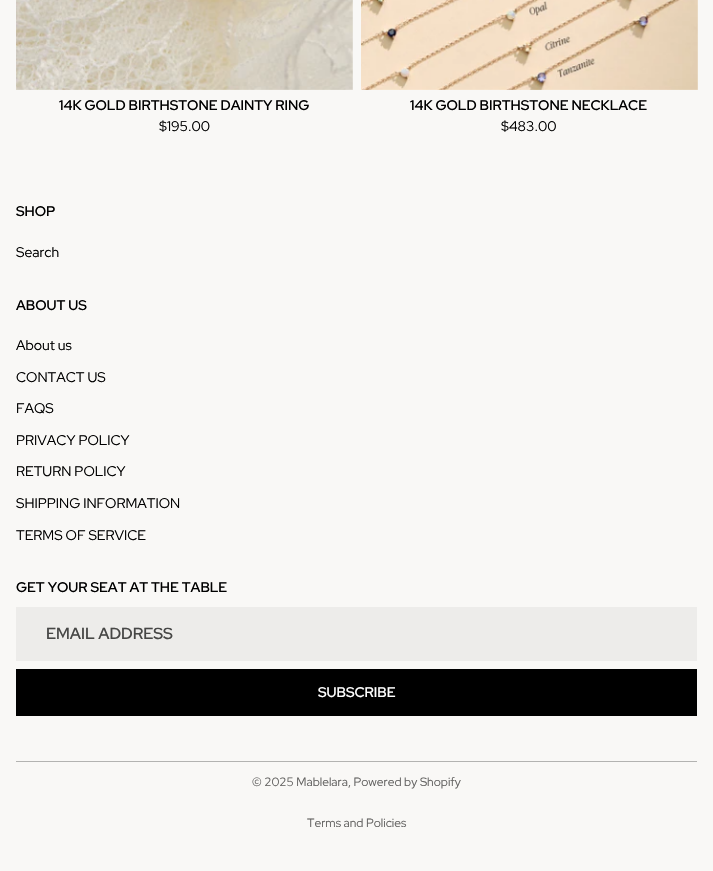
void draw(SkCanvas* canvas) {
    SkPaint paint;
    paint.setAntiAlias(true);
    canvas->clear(0xFFF9F8F6);
    canvas->drawImageRect(SkImages::DeferredFromEncodedData(SkData::MakeFromFileName("img1.png")), SkRect::MakeXYWH(16, 0, 337, 90), SkSamplingOptions());
    SkFont font1(fontMgr->matchFamilyStyle("Red Hat Display", SkFontStyle(600, SkFontStyle::kNormal_Width, SkFontStyle::kUpright_Slant)), 14);
    font1.setSubpixel(true);
    paint.setColor(0xFF000000);
    canvas->drawString("14K GOLD BIRTHSTONE DAINTY RING", 59, 110, font1, paint);
    SkFont font2(fontMgr->matchFamilyStyle("Red Hat Display", SkFontStyle::Normal()), 14);
    font2.setSubpixel(true);
    canvas->drawString("$195.00", 159, 131, font2, paint);
    canvas->drawImageRect(SkImages::DeferredFromEncodedData(SkData::MakeFromFileName("img2.png")), SkRect::MakeXYWH(361, 0, 337, 90), SkSamplingOptions());
    canvas->drawString("14K GOLD BIRTHSTONE NECKLACE", 410, 110, font1, paint);
    canvas->drawString("$483.00", 501, 131, font2, paint);
    canvas->drawString("SHOP", 16, 216, font1, paint);
    canvas->drawString("Search", 16, 257, font2, paint);
    canvas->drawString("ABOUT US", 16, 310, font1, paint);
    canvas->drawString("About us", 16, 350, font2, paint);
    canvas->drawString("CONTACT US", 16, 382, font2, paint);
    canvas->drawString("FAQS", 16, 413, font2, paint);
    canvas->drawString("PRIVACY POLICY", 16, 445, font2, paint);
    canvas->drawString("RETURN POLICY", 16, 476, font2, paint);
    canvas->drawString("SHIPPING INFORMATION", 16, 508, font2, paint);
    canvas->drawString("TERMS OF SERVICE", 16, 540, font2, paint);
    canvas->drawString("GET YOUR SEAT AT THE TABLE", 16, 592, font1, paint);
    paint.setColor(0xFFEDECEA);
    canvas->drawRect(SkRect::MakeXYWH(16, 607, 681, 54), paint);
    SkFont font3(fontMgr->matchFamilyStyle("Red Hat Display", SkFontStyle(600, SkFontStyle::kNormal_Width, SkFontStyle::kUpright_Slant)), 16);
    font3.setSubpixel(true);
    paint.setColor(0xFF474746);
    canvas->drawString("EMAIL ADDRESS", 46, 639, font3, paint);
    paint.setColor(0xFF000000);
    canvas->drawRect(SkRect::MakeXYWH(16, 669, 681, 47), paint);
    paint.setColor(0xFFFFFFFF);
    canvas->drawString("SUBSCRIBE", 318, 697, font1, paint);
    paint.setColor(0xFFB3B3B1);
    canvas->drawRect(SkRect::MakeXYWH(16, 761, 681, 1), paint);
    SkFont font4(fontMgr->matchFamilyStyle("Red Hat Display", SkFontStyle::Normal()), 12);
    font4.setSubpixel(true);
    paint.setColor(0xFF646362);
    canvas->drawString("© 2025 Mablelara, Powered by Shopify", 252, 786, font4, paint);
    canvas->drawString("Terms and Policies", 307, 827, font4, paint);
}
